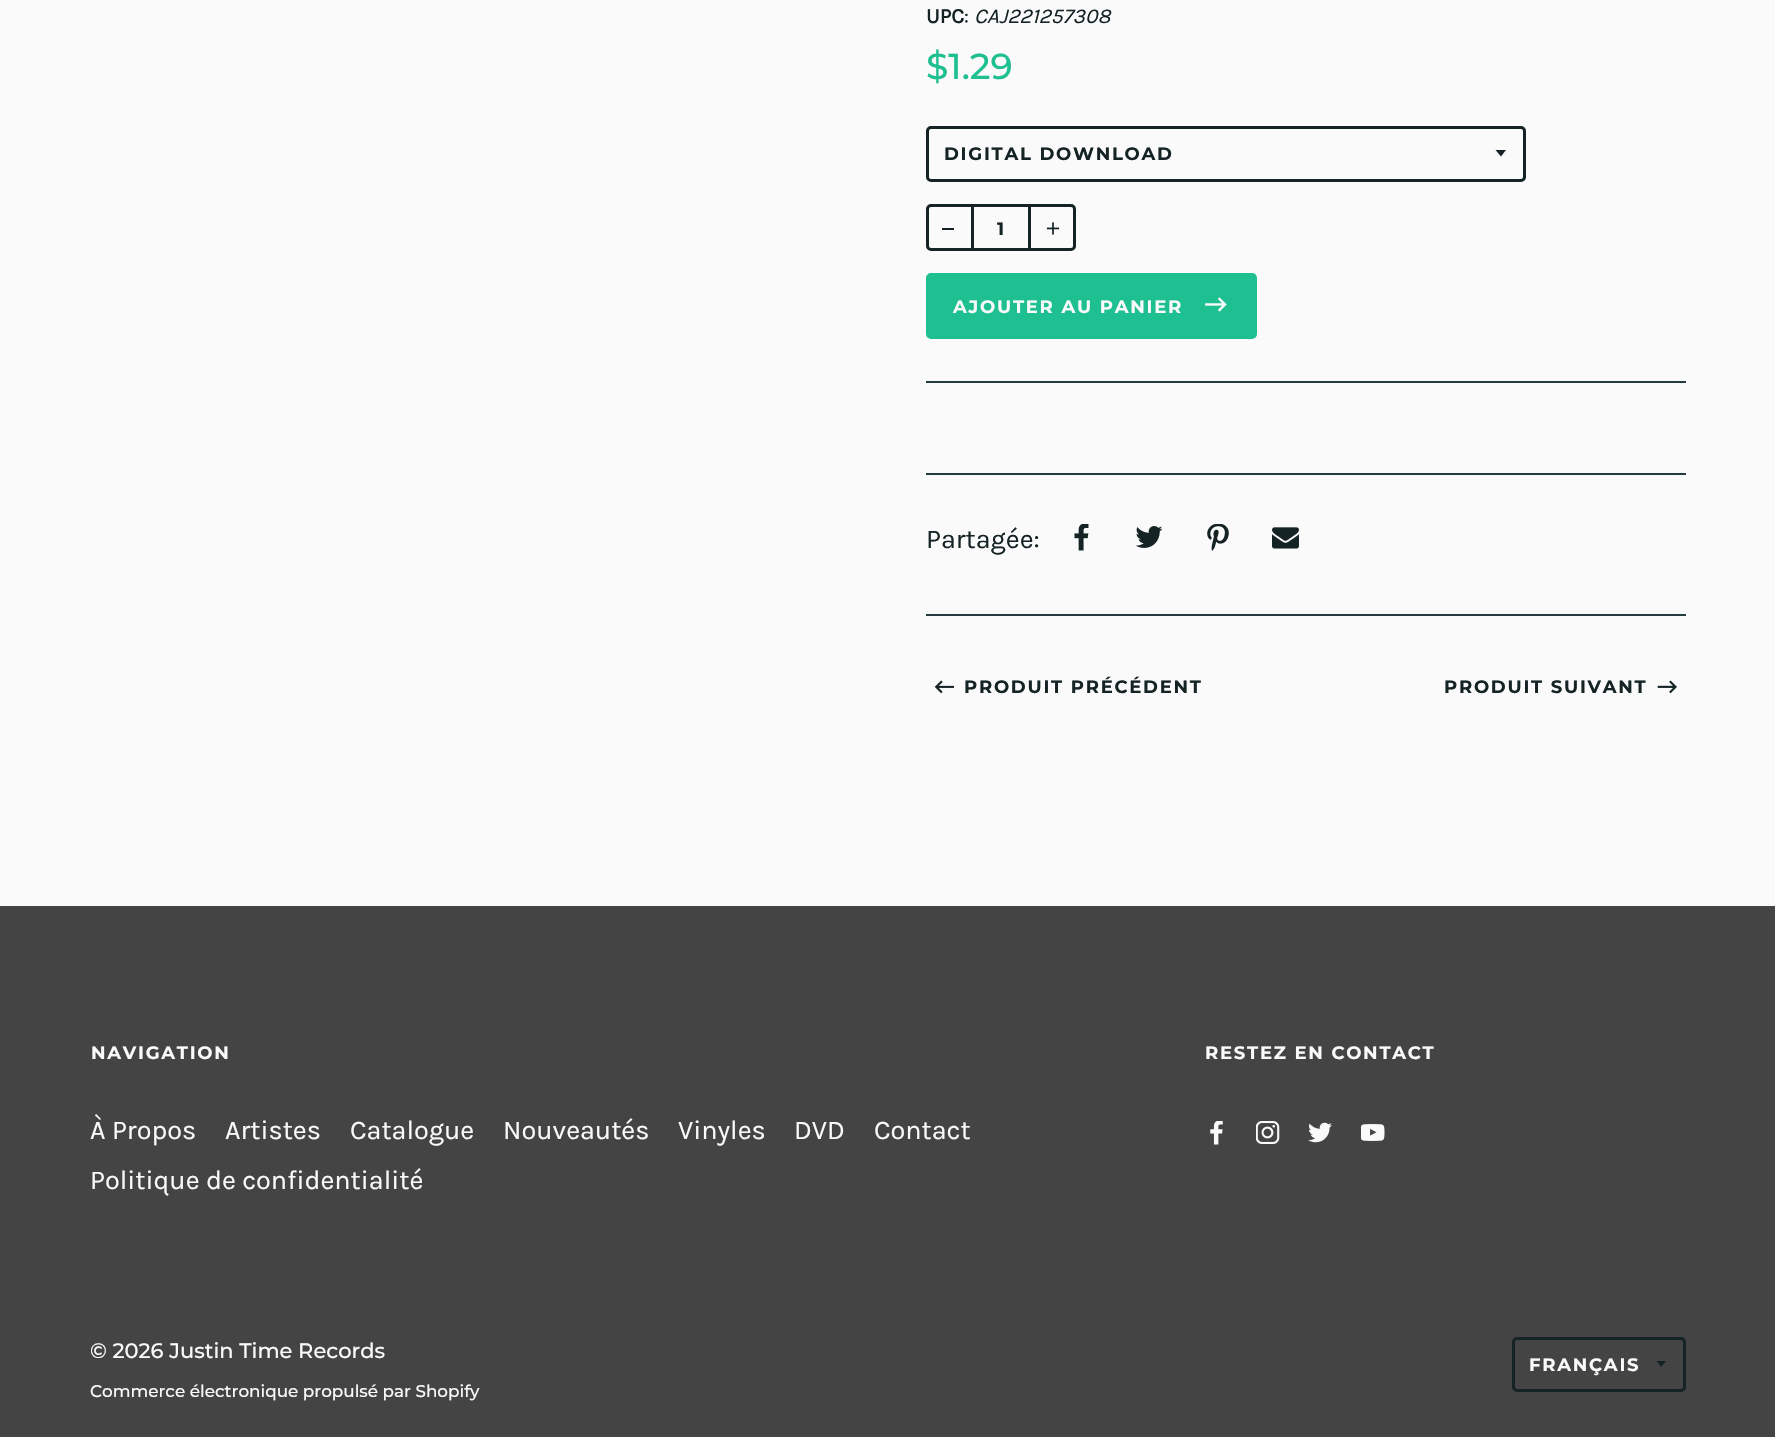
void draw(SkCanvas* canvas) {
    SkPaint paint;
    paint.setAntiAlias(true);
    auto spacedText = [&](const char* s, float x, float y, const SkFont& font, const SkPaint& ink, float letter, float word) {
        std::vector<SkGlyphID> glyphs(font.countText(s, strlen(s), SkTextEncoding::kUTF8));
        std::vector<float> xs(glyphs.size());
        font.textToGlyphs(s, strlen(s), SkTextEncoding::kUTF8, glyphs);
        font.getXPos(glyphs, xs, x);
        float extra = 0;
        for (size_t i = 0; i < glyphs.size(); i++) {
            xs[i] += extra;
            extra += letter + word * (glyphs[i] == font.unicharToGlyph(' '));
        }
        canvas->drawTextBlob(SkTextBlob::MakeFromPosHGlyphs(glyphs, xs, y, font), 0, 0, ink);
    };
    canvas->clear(0xFFFAFAFA);
    SkFont font1(fontMgr->matchFamilyStyle("Karla", SkFontStyle::Bold()), 21);
    font1.setSubpixel(true);
    paint.setColor(0xFF152324);
    canvas->drawString("UPC", 926, 23, font1, paint);
    SkFont font2(fontMgr->matchFamilyStyle("Karla", SkFontStyle::Normal()), 21);
    font2.setSubpixel(true);
    canvas->drawString(":", 964, 23, font2, paint);
    SkFont font3(fontMgr->matchFamilyStyle("Karla", SkFontStyle::Italic()), 21);
    font3.setSubpixel(true);
    canvas->drawString("CAJ221257308", 974, 23, font3, paint);
    SkFont font4(fontMgr->matchFamilyStyle("Montserrat", SkFontStyle(500, SkFontStyle::kNormal_Width, SkFontStyle::kUpright_Slant)), 36);
    font4.setSubpixel(true);
    paint.setColor(0xFF1EBF90);
    canvas->drawString("$1.29", 926, 79, font4, paint);
    paint.setColor(0xFF152324);
    canvas->drawPath(SkPathBuilder().moveTo(1495.5f, 150).lineTo(1501, 156.5f).lineTo(1506, 150).close().detach(), paint);
    paint.setStyle(SkPaint::kStroke_Style);
    paint.setStrokeWidth(3);
    canvas->drawRoundRect(SkRect::MakeXYWH(927.5f, 127.5f, 597, 53), 3.5f, 3.5f, paint);
    SkFont font5(fontMgr->matchFamilyStyle("Montserrat", SkFontStyle::Bold()), 18);
    font5.setSubpixel(true);
    paint.setStyle(SkPaint::kFill_Style);
    spacedText("DIGITAL DOWNLOAD", 944, 160, font5, paint, 1.75f, 0);
    paint.setStyle(SkPaint::kStroke_Style);
    canvas->drawRoundRect(SkRect::MakeXYWH(927.5f, 205.5f, 147, 44), 3.5f, 3.5f, paint);
    paint.setStyle(SkPaint::kFill_Style);
    canvas->drawRect(SkRect::MakeXYWH(971, 204, 3, 47), paint);
    canvas->drawRect(SkRect::MakeXYWH(942, 228, 12, 2), paint);
    spacedText("1", 997, 235, font5, paint, 1.75f, 0);
    canvas->drawRect(SkRect::MakeXYWH(1028, 204, 3, 47), paint);
    canvas->drawImageRect(SkImages::DeferredFromEncodedData(SkData::MakeFromFileName("img1.png")), SkRect::MakeXYWH(1046, 222, 14, 13), SkSamplingOptions());
    paint.setColor(0xFF1EBF90);
    canvas->drawRoundRect(SkRect::MakeXYWH(927.5f, 274.5f, 328, 63), 3.5f, 3.5f, paint);
    paint.setStyle(SkPaint::kStroke_Style);
    canvas->drawRoundRect(SkRect::MakeXYWH(927.5f, 274.5f, 328, 63), 3.5f, 3.5f, paint);
    paint.setStyle(SkPaint::kFill_Style);
    paint.setColor(0xFFFAFAFA);
    spacedText("AJOUTER AU PANIER", 953, 313, font5, paint, 1.75f, 0);
    canvas->drawImageRect(SkImages::DeferredFromEncodedData(SkData::MakeFromFileName("img2.png")), SkRect::MakeXYWH(1205, 297, 22, 15), SkSamplingOptions());
    paint.setColor(0xFF243C3E);
    canvas->drawRect(SkRect::MakeXYWH(926, 381, 760, 2), paint);
    canvas->drawRect(SkRect::MakeXYWH(926, 473, 760, 2), paint);
    SkFont font6(fontMgr->matchFamilyStyle("Karla", SkFontStyle::Normal()), 27);
    font6.setSubpixel(true);
    paint.setColor(0xFF152324);
    canvas->drawString("Partagée:", 926, 548, font6, paint);
    canvas->drawImageRect(SkImages::DeferredFromEncodedData(SkData::MakeFromFileName("img3.png")), SkRect::MakeXYWH(1074, 524, 15, 27), SkSamplingOptions());
    canvas->drawImageRect(SkImages::DeferredFromEncodedData(SkData::MakeFromFileName("img4.png")), SkRect::MakeXYWH(1136, 526, 27, 22), SkSamplingOptions());
    canvas->drawImageRect(SkImages::DeferredFromEncodedData(SkData::MakeFromFileName("img5.png")), SkRect::MakeXYWH(1207, 524, 22, 27), SkSamplingOptions());
    canvas->drawImageRect(SkImages::DeferredFromEncodedData(SkData::MakeFromFileName("img6.png")), SkRect::MakeXYWH(1272, 527, 27, 22), SkSamplingOptions());
    paint.setColor(0xFF243C3E);
    canvas->drawRect(SkRect::MakeXYWH(926, 614, 760, 2), paint);
    canvas->drawImageRect(SkImages::DeferredFromEncodedData(SkData::MakeFromFileName("img7.png")), SkRect::MakeXYWH(934, 680, 20, 14), SkSamplingOptions());
    paint.setColor(0xFF152324);
    spacedText("PRODUIT PRÉCÉDENT", 964, 693, font5, paint, 1.75f, 0);
    spacedText("PRODUIT SUIVANT", 1444, 693, font5, paint, 1.75f, 0);
    canvas->drawImageRect(SkImages::DeferredFromEncodedData(SkData::MakeFromFileName("img8.png")), SkRect::MakeXYWH(1657, 680, 20, 14), SkSamplingOptions());
    paint.setColor(0xFF444444);
    canvas->drawRect(SkRect::MakeXYWH(0, 906, 1775, 531), paint);
    paint.setColor(0xFFFAFAFA);
    spacedText("NAVIGATION", 91, 1059, font5, paint, 1.75f, 0);
    canvas->drawString("À Propos", 90, 1139, font6, paint);
    canvas->drawString("Artistes", 225, 1139, font6, paint);
    canvas->drawString("Catalogue", 350, 1139, font6, paint);
    canvas->drawString("Nouveautés", 503, 1139, font6, paint);
    canvas->drawString("Vinyles", 678, 1139, font6, paint);
    canvas->drawString("DVD", 794, 1139, font6, paint);
    canvas->drawString("Contact", 874, 1139, font6, paint);
    canvas->drawString("Politique de confidentialité", 90, 1189, font6, paint);
    spacedText("RESTEZ EN CONTACT", 1205, 1059, font5, paint, 1.75f, 0);
    canvas->drawImageRect(SkImages::DeferredFromEncodedData(SkData::MakeFromFileName("img9.png")), SkRect::MakeXYWH(1210, 1121, 13, 24), SkSamplingOptions());
    canvas->drawImageRect(SkImages::DeferredFromEncodedData(SkData::MakeFromFileName("img10.png")), SkRect::MakeXYWH(1256, 1121, 24, 23), SkSamplingOptions());
    canvas->drawImageRect(SkImages::DeferredFromEncodedData(SkData::MakeFromFileName("img11.png")), SkRect::MakeXYWH(1308, 1122, 24, 21), SkSamplingOptions());
    canvas->drawImageRect(SkImages::DeferredFromEncodedData(SkData::MakeFromFileName("img12.png")), SkRect::MakeXYWH(1361, 1124, 24, 17), SkSamplingOptions());
    SkFont font7(fontMgr->matchFamilyStyle("Montserrat", SkFontStyle(500, SkFontStyle::kNormal_Width, SkFontStyle::kUpright_Slant)), 21);
    font7.setSubpixel(true);
    canvas->drawString("© 2026 Justin Time Records", 90, 1358, font7, paint);
    SkFont font8(fontMgr->matchFamilyStyle("Montserrat", SkFontStyle(500, SkFontStyle::kNormal_Width, SkFontStyle::kUpright_Slant)), 16.8f);
    font8.setSubpixel(true);
    canvas->drawString("Commerce électronique propulsé par Shopify", 90, 1397, font8, paint);
    canvas->save();
    canvas->clipRect(SkRect::MakeXYWH(1656, 1361, 12, 7));
    paint.setColor(0xFF152324);
    canvas->drawPath(SkPathBuilder().moveTo(1656, 1360.5f).lineTo(1661, 1367).lineTo(1666.5f, 1360.5f).close().detach(), paint);
    canvas->restore();
    paint.setStyle(SkPaint::kStroke_Style);
    canvas->drawRoundRect(SkRect::MakeXYWH(1513.5f, 1338.5f, 171, 52), 3.5f, 3.5f, paint);
    paint.setStyle(SkPaint::kFill_Style);
    paint.setColor(0xFFFAFAFA);
    spacedText("FRANÇAIS", 1529, 1371, font5, paint, 1.75f, 0);
}
